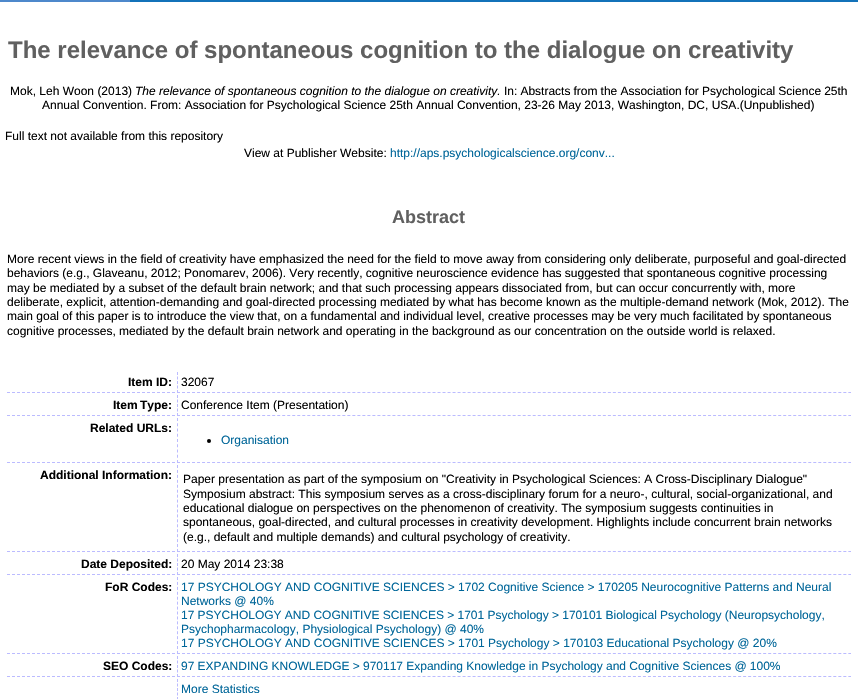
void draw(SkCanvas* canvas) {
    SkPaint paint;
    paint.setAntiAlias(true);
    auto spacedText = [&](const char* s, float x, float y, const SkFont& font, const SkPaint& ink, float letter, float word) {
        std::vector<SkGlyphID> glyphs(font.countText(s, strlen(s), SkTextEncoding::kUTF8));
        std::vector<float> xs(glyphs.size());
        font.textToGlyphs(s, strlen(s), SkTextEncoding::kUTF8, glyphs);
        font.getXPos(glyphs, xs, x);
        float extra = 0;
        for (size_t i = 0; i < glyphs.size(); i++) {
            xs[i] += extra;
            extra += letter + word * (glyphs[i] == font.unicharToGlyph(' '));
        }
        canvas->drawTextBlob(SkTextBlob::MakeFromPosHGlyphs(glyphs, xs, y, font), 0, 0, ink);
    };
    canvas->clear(0xFFFFFFFF);
    paint.setColor(0xFF1372B9);
    canvas->drawRect(SkRect::MakeXYWH(130, 0, 728, 2), paint);
    paint.setColor(0xFF4E88CB);
    canvas->drawRect(SkRect::MakeXYWH(0, 0, 130, 2), paint);
    SkFont font1(fontMgr->matchFamilyStyle("Liberation Sans", SkFontStyle::Bold()), 24);
    font1.setSubpixel(true);
    paint.setColor(0xFF606060);
    canvas->drawString("The relevance of spontaneous cognition to the dialogue on creativity", 8, 58, font1, paint);
    SkFont font2(fontMgr->matchFamilyStyle("Liberation Sans", SkFontStyle::Normal()), 12);
    font2.setSubpixel(true);
    paint.setColor(0xFF000000);
    canvas->drawString("Mok, Leh Woon (2013)", 10, 95, font2, paint);
    SkFont font3(fontMgr->matchFamilyStyle("Liberation Sans", SkFontStyle::Italic()), 12);
    font3.setSubpixel(true);
    canvas->drawString("The relevance of spontaneous cognition to the dialogue on creativity.", 135, 95, font3, paint);
    spacedText("In: Abstracts from the Association for Psychological Science 25th", 504, 95, font2, paint, 0, -0.25f);
    canvas->drawString("Annual Convention. From: Association for Psychological Science 25th Annual Convention, 23-26 May 2013, Washington, DC, USA.(Unpublished)", 42, 109, font2, paint);
    canvas->drawString("Full text not available from this repository", 5, 140, font2, paint);
    canvas->drawString("View at Publisher Website:", 244, 157, font2, paint);
    paint.setColor(0xFF006699);
    canvas->drawString("http://aps.psychologicalscience.org/conv...", 390, 157, font2, paint);
    SkFont font4(fontMgr->matchFamilyStyle("Liberation Sans", SkFontStyle::Bold()), 18);
    font4.setSubpixel(true);
    paint.setColor(0xFF606060);
    canvas->drawString("Abstract", 392, 223, font4, paint);
    paint.setColor(0xFF000000);
    canvas->drawString("More recent views in the field of creativity have emphasized the need for the field to move away from considering only deliberate, purposeful and goal-directed", 7, 263, font2, paint);
    spacedText("behaviors (e.g., Glaveanu, 2012; Ponomarev, 2006). Very recently, cognitive neuroscience evidence has suggested that spontaneous cognitive processing", 7, 277, font2, paint, 0, -0.1f);
    canvas->drawString("may be mediated by a subset of the default brain network; and that such processing appears dissociated from, but can occur concurrently with, more", 7, 292, font2, paint);
    canvas->drawString("deliberate, explicit, attention-demanding and goal-directed processing mediated by what has become known as the multiple-demand network (Mok, 2012). The", 7, 306, font2, paint);
    canvas->drawString("main goal of this paper is to introduce the view that, on a fundamental and individual level, creative processes may be very much facilitated by spontaneous", 7, 320, font2, paint);
    canvas->drawString("cognitive processes, mediated by the default brain network and operating in the background as our concentration on the outside world is relaxed.", 7, 335, font2, paint);
    paint.setStyle(SkPaint::kStroke_Style);
    paint.setStrokeWidth(1);
    paint.setColor(0xFFBBBBFF);
    paint.setPathEffect(SkDashPathEffect::Make({{3, 2}}, 0));
    canvas->drawPath(SkPathBuilder().moveTo(7, 392.5f).lineTo(175, 392.5f).detach(), paint);
    paint.setPathEffect(nullptr);
    SkFont font5(fontMgr->matchFamilyStyle("Liberation Sans", SkFontStyle::Bold()), 12);
    font5.setSubpixel(true);
    paint.setStyle(SkPaint::kFill_Style);
    paint.setColor(0xFF000000);
    canvas->drawString("Item ID:", 128, 386, font5, paint);
    paint.setStyle(SkPaint::kStroke_Style);
    paint.setColor(0xFFBBBBFF);
    paint.setPathEffect(SkDashPathEffect::Make({{3, 2.01f}}, 0));
    canvas->drawPath(SkPathBuilder().moveTo(177, 392.5f).lineTo(851, 392.5f).detach(), paint);
    paint.setPathEffect(nullptr);
    paint.setPathEffect(SkDashPathEffect::Make({{3, 1.5f}}, 0));
    canvas->drawPath(SkPathBuilder().moveTo(177.5f, 372).lineTo(177.5f, 393).detach(), paint);
    paint.setPathEffect(nullptr);
    paint.setStyle(SkPaint::kFill_Style);
    paint.setColor(0xFF000000);
    canvas->drawString("32067", 181, 386, font2, paint);
    paint.setStyle(SkPaint::kStroke_Style);
    paint.setColor(0xFFBBBBFF);
    paint.setPathEffect(SkDashPathEffect::Make({{3, 2}}, 0));
    canvas->drawPath(SkPathBuilder().moveTo(7, 415.5f).lineTo(175, 415.5f).detach(), paint);
    paint.setPathEffect(nullptr);
    paint.setStyle(SkPaint::kFill_Style);
    paint.setColor(0xFF000000);
    spacedText("Item Type:", 113, 409, font5, paint, 0, -1);
    paint.setStyle(SkPaint::kStroke_Style);
    paint.setColor(0xFFBBBBFF);
    paint.setPathEffect(SkDashPathEffect::Make({{3, 2.01f}}, 0));
    canvas->drawPath(SkPathBuilder().moveTo(177, 415.5f).lineTo(851, 415.5f).detach(), paint);
    paint.setPathEffect(nullptr);
    paint.setPathEffect(SkDashPathEffect::Make({{3, 1.5f}}, 0));
    canvas->drawPath(SkPathBuilder().moveTo(177.5f, 395).lineTo(177.5f, 416).detach(), paint);
    paint.setPathEffect(nullptr);
    paint.setStyle(SkPaint::kFill_Style);
    paint.setColor(0xFF000000);
    canvas->drawString("Conference Item (Presentation)", 181, 409, font2, paint);
    paint.setStyle(SkPaint::kStroke_Style);
    paint.setColor(0xFFBBBBFF);
    paint.setPathEffect(SkDashPathEffect::Make({{3, 2}}, 0));
    canvas->drawPath(SkPathBuilder().moveTo(7, 462.5f).lineTo(175, 462.5f).detach(), paint);
    paint.setPathEffect(nullptr);
    paint.setStyle(SkPaint::kFill_Style);
    paint.setColor(0xFF000000);
    canvas->drawString("Related URLs:", 90, 432, font5, paint);
    paint.setStyle(SkPaint::kStroke_Style);
    paint.setColor(0xFFBBBBFF);
    paint.setPathEffect(SkDashPathEffect::Make({{3, 2.01f}}, 0));
    canvas->drawPath(SkPathBuilder().moveTo(177, 462.5f).lineTo(851, 462.5f).detach(), paint);
    paint.setPathEffect(nullptr);
    paint.setPathEffect(SkDashPathEffect::Make({{3, 2.25f}}, 0));
    canvas->drawPath(SkPathBuilder().moveTo(177.5f, 418).lineTo(177.5f, 463).detach(), paint);
    paint.setPathEffect(nullptr);
    paint.setStyle(SkPaint::kFill_Style);
    paint.setColor(0xFF000000);
    canvas->drawCircle(209, 441, 2, paint);
    paint.setColor(0xFF006699);
    canvas->drawString("Organisation", 221, 444, font2, paint);
    paint.setStyle(SkPaint::kStroke_Style);
    paint.setColor(0xFFBBBBFF);
    paint.setPathEffect(SkDashPathEffect::Make({{3, 2}}, 0));
    canvas->drawPath(SkPathBuilder().moveTo(7, 551.5f).lineTo(175, 551.5f).detach(), paint);
    paint.setPathEffect(nullptr);
    paint.setStyle(SkPaint::kFill_Style);
    paint.setColor(0xFF000000);
    canvas->drawString("Additional Information:", 40, 479, font5, paint);
    paint.setStyle(SkPaint::kStroke_Style);
    paint.setColor(0xFFBBBBFF);
    paint.setPathEffect(SkDashPathEffect::Make({{3, 2.01f}}, 0));
    canvas->drawPath(SkPathBuilder().moveTo(177, 551.5f).lineTo(851, 551.5f).detach(), paint);
    paint.setPathEffect(nullptr);
    paint.setPathEffect(SkDashPathEffect::Make({{3, 1.94f}}, 0));
    canvas->drawPath(SkPathBuilder().moveTo(177.5f, 465).lineTo(177.5f, 552).detach(), paint);
    paint.setPathEffect(nullptr);
    paint.setStyle(SkPaint::kFill_Style);
    paint.setColor(0xFF000000);
    canvas->drawString("Paper presentation as part of the symposium on \"Creativity in Psychological Sciences: A Cross-Disciplinary Dialogue\"", 183, 483, font2, paint);
    canvas->drawString("Symposium abstract: This symposium serves as a cross-disciplinary forum for a neuro-, cultural, social-organizational, and", 183, 498, font2, paint);
    canvas->drawString("educational dialogue on perspectives on the phenomenon of creativity. The symposium suggests continuities in", 183, 512, font2, paint);
    canvas->drawString("spontaneous, goal-directed, and cultural processes in creativity development. Highlights include concurrent brain networks", 183, 526, font2, paint);
    canvas->drawString("(e.g., default and multiple demands) and cultural psychology of creativity.", 183, 541, font2, paint);
    paint.setStyle(SkPaint::kStroke_Style);
    paint.setColor(0xFFBBBBFF);
    paint.setPathEffect(SkDashPathEffect::Make({{3, 2}}, 0));
    canvas->drawPath(SkPathBuilder().moveTo(7, 574.5f).lineTo(175, 574.5f).detach(), paint);
    paint.setPathEffect(nullptr);
    paint.setStyle(SkPaint::kFill_Style);
    paint.setColor(0xFF000000);
    canvas->drawString("Date Deposited:", 81, 568, font5, paint);
    paint.setStyle(SkPaint::kStroke_Style);
    paint.setColor(0xFFBBBBFF);
    paint.setPathEffect(SkDashPathEffect::Make({{3, 2.01f}}, 0));
    canvas->drawPath(SkPathBuilder().moveTo(177, 574.5f).lineTo(851, 574.5f).detach(), paint);
    paint.setPathEffect(nullptr);
    paint.setPathEffect(SkDashPathEffect::Make({{3, 1.5f}}, 0));
    canvas->drawPath(SkPathBuilder().moveTo(177.5f, 554).lineTo(177.5f, 575).detach(), paint);
    paint.setPathEffect(nullptr);
    paint.setStyle(SkPaint::kFill_Style);
    paint.setColor(0xFF000000);
    canvas->drawString("20 May 2014 23:38", 181, 568, font2, paint);
    paint.setStyle(SkPaint::kStroke_Style);
    paint.setColor(0xFFBBBBFF);
    paint.setPathEffect(SkDashPathEffect::Make({{3, 2}}, 0));
    canvas->drawPath(SkPathBuilder().moveTo(7, 653.5f).lineTo(175, 653.5f).detach(), paint);
    paint.setPathEffect(nullptr);
    paint.setStyle(SkPaint::kFill_Style);
    paint.setColor(0xFF000000);
    canvas->drawString("FoR Codes:", 105, 591, font5, paint);
    paint.setStyle(SkPaint::kStroke_Style);
    paint.setColor(0xFFBBBBFF);
    paint.setPathEffect(SkDashPathEffect::Make({{3, 2.01f}}, 0));
    canvas->drawPath(SkPathBuilder().moveTo(177, 653.5f).lineTo(851, 653.5f).detach(), paint);
    paint.setPathEffect(nullptr);
    paint.setPathEffect(SkDashPathEffect::Make({{3, 1.93f}}, 0));
    canvas->drawPath(SkPathBuilder().moveTo(177.5f, 577).lineTo(177.5f, 654).detach(), paint);
    paint.setPathEffect(nullptr);
    paint.setStyle(SkPaint::kFill_Style);
    paint.setColor(0xFF006699);
    canvas->drawString("17 PSYCHOLOGY AND COGNITIVE SCIENCES > 1702 Cognitive Science > 170205 Neurocognitive Patterns and Neural", 181, 591, font2, paint);
    canvas->drawString("Networks @ 40%", 181, 605, font2, paint);
    spacedText("17 PSYCHOLOGY AND COGNITIVE SCIENCES > 1701 Psychology > 170101 Biological Psychology (Neuropsychology,", 181, 619, font2, paint, 0, -0.1f);
    canvas->drawString("Psychopharmacology, Physiological Psychology) @ 40%", 181, 633, font2, paint);
    canvas->drawString("17 PSYCHOLOGY AND COGNITIVE SCIENCES > 1701 Psychology > 170103 Educational Psychology @ 20%", 181, 647, font2, paint);
    paint.setStyle(SkPaint::kStroke_Style);
    paint.setColor(0xFFBBBBFF);
    paint.setPathEffect(SkDashPathEffect::Make({{3, 2}}, 0));
    canvas->drawPath(SkPathBuilder().moveTo(7, 676.5f).lineTo(175, 676.5f).detach(), paint);
    paint.setPathEffect(nullptr);
    paint.setStyle(SkPaint::kFill_Style);
    paint.setColor(0xFF000000);
    canvas->drawString("SEO Codes:", 103, 670, font5, paint);
    paint.setStyle(SkPaint::kStroke_Style);
    paint.setColor(0xFFBBBBFF);
    paint.setPathEffect(SkDashPathEffect::Make({{3, 2.01f}}, 0));
    canvas->drawPath(SkPathBuilder().moveTo(177, 676.5f).lineTo(851, 676.5f).detach(), paint);
    paint.setPathEffect(nullptr);
    paint.setPathEffect(SkDashPathEffect::Make({{3, 1.5f}}, 0));
    canvas->drawPath(SkPathBuilder().moveTo(177.5f, 656).lineTo(177.5f, 677).moveTo(177.5f, 679).lineTo(177.5f, 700).detach(), paint);
    paint.setPathEffect(nullptr);
    paint.setStyle(SkPaint::kFill_Style);
    paint.setColor(0xFF006699);
    spacedText("97 EXPANDING KNOWLEDGE > 970117 Expanding Knowledge in Psychology and Cognitive Sciences @ 100%", 181, 670, font2, paint, 0, -0.1f);
    canvas->drawString("More Statistics", 181, 693, font2, paint);
}
